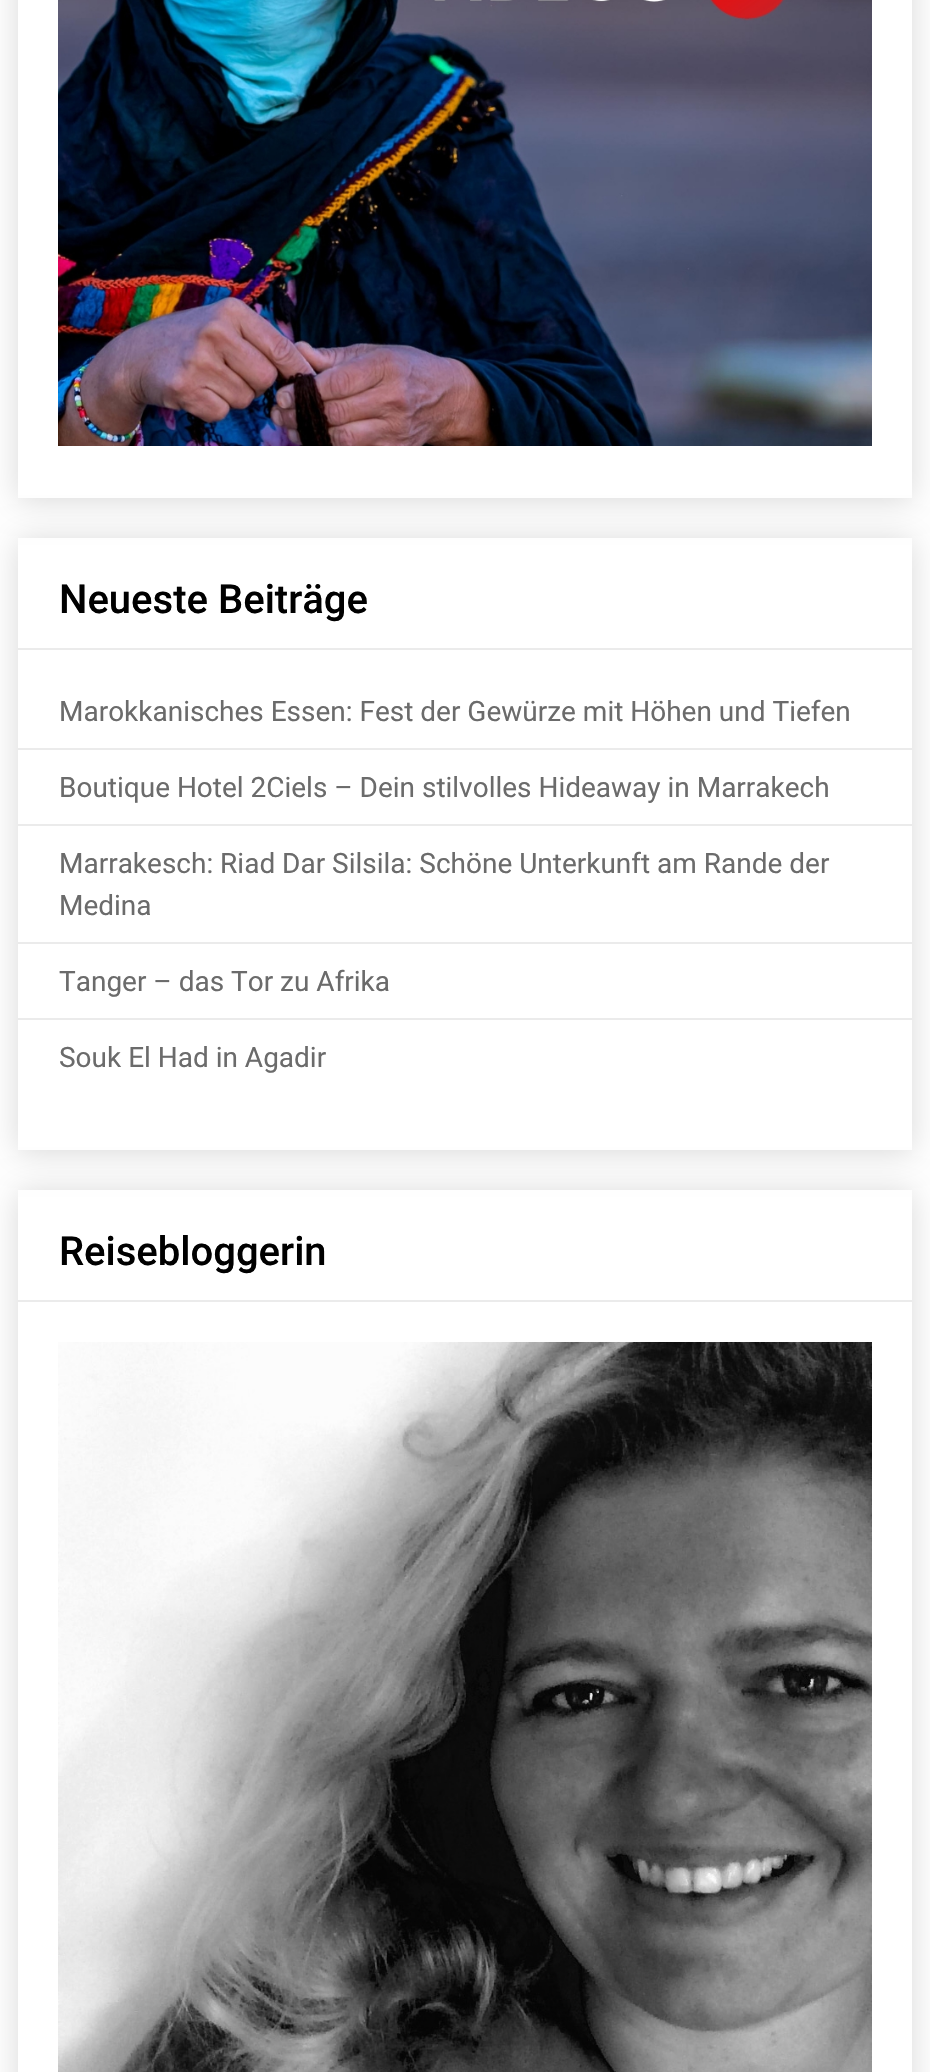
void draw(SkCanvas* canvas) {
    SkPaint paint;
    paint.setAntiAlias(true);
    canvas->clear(0xFFFFFFFF);
    canvas->save();
    canvas->clipPath(SkPathBuilder(SkPathFillType::kEvenOdd).moveTo(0, 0).lineTo(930, 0).lineTo(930, 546).lineTo(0, 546).close().moveTo(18, -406).lineTo(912, -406).lineTo(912, 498).lineTo(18, 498).close().detach(), true);
    paint.setColor(0x26000000);
    paint.setMaskFilter(SkMaskFilter::MakeBlur(kNormal_SkBlurStyle, 15));
    canvas->drawRect(SkRect::MakeXYWH(18, -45, 894, 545), paint);
    paint.setMaskFilter(nullptr);
    canvas->restore();
    canvas->drawImageRect(SkImages::DeferredFromEncodedData(SkData::MakeFromFileName("img1.png")), SkRect::MakeXYWH(58, 0, 814, 446), SkSamplingOptions());
    canvas->save();
    canvas->clipPath(SkPathBuilder(SkPathFillType::kEvenOdd).moveTo(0, 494).lineTo(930, 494).lineTo(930, 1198).lineTo(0, 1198).close().moveTo(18, 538).lineTo(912, 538).lineTo(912, 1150).lineTo(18, 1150).close().detach(), true);
    paint.setMaskFilter(SkMaskFilter::MakeBlur(kNormal_SkBlurStyle, 15));
    canvas->drawRect(SkRect::MakeXYWH(18, 540, 894, 612), paint);
    paint.setMaskFilter(nullptr);
    canvas->restore();
    paint.setColor(0xFFEBEBEB);
    canvas->drawRect(SkRect::MakeXYWH(18, 648, 894, 2), paint);
    SkFont font1(fontMgr->matchFamilyStyle("Roboto", SkFontStyle(500, SkFontStyle::kNormal_Width, SkFontStyle::kUpright_Slant)), 40);
    font1.setSubpixel(true);
    paint.setColor(0xFF000000);
    canvas->drawString("Neueste Beiträge", 59, 613, font1, paint);
    paint.setColor(0xFFEBEBEB);
    canvas->drawRect(SkRect::MakeXYWH(18, 748, 894, 2), paint);
    SkFont font2(fontMgr->matchFamilyStyle("Roboto", SkFontStyle::Normal()), 28);
    font2.setSubpixel(true);
    paint.setColor(0xFF6B6B6B);
    canvas->drawString("Marokkanisches Essen: Fest der Gewürze mit Höhen und Tiefen", 59, 721, font2, paint);
    paint.setColor(0xFFEBEBEB);
    canvas->drawRect(SkRect::MakeXYWH(18, 824, 894, 2), paint);
    paint.setColor(0xFF6B6B6B);
    canvas->drawString("Boutique Hotel 2Ciels – Dein stilvolles Hideaway in Marrakech", 59, 797, font2, paint);
    paint.setColor(0xFFEBEBEB);
    canvas->drawRect(SkRect::MakeXYWH(18, 942, 894, 2), paint);
    paint.setColor(0xFF6B6B6B);
    canvas->drawString("Marrakesch: Riad Dar Silsila: Schöne Unterkunft am Rande der", 59, 873, font2, paint);
    canvas->drawString("Medina", 59, 915, font2, paint);
    paint.setColor(0xFFEBEBEB);
    canvas->drawRect(SkRect::MakeXYWH(18, 1018, 894, 2), paint);
    paint.setColor(0xFF6B6B6B);
    canvas->drawString("Tanger – das Tor zu Afrika", 59, 991, font2, paint);
    canvas->drawString("Souk El Had in Agadir", 59, 1067, font2, paint);
    canvas->save();
    canvas->clipPath(SkPathBuilder(SkPathFillType::kEvenOdd).moveTo(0, 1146).lineTo(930, 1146).lineTo(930, 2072).lineTo(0, 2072).close().moveTo(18, 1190).lineTo(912, 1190).lineTo(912, 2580).lineTo(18, 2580).close().detach(), true);
    paint.setColor(0x26000000);
    paint.setMaskFilter(SkMaskFilter::MakeBlur(kNormal_SkBlurStyle, 15));
    canvas->drawRect(SkRect::MakeXYWH(18, 1192, 894, 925), paint);
    paint.setMaskFilter(nullptr);
    canvas->restore();
    paint.setColor(0xFFEBEBEB);
    canvas->drawRect(SkRect::MakeXYWH(18, 1300, 894, 2), paint);
    paint.setColor(0xFF000000);
    canvas->drawString("Reisebloggerin", 59, 1265, font1, paint);
    canvas->drawImageRect(SkImages::DeferredFromEncodedData(SkData::MakeFromFileName("img2.png")), SkRect::MakeXYWH(58, 1342, 814, 730), SkSamplingOptions());
}
